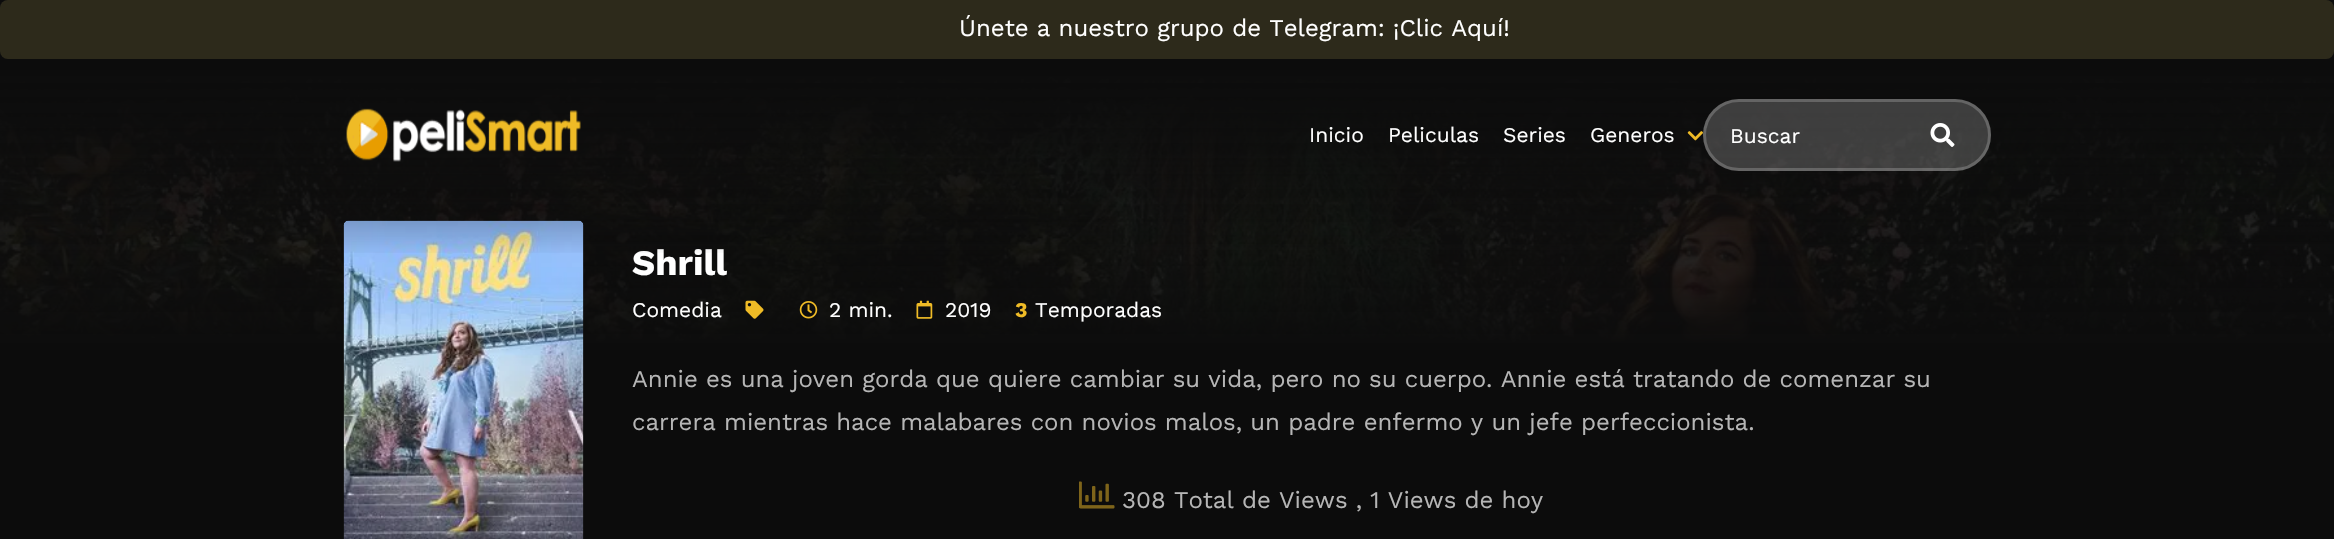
void draw(SkCanvas* canvas) {
    SkPaint paint;
    paint.setAntiAlias(true);
    canvas->clear(0xFF0C0C0C);
    paint.setColor(0xFF2D2A1B);
    canvas->drawRoundRect(SkRect::MakeXYWH(0, 0, 2334, 59), 8, 8, paint);
    SkFont font1(fontMgr->matchFamilyStyle("Work Sans", SkFontStyle::Normal()), 24);
    font1.setSubpixel(true);
    paint.setColor(0xFFFFFFFF);
    canvas->drawString("Únete a nuestro grupo de Telegram: ¡Clic Aquí!", 959, 36, font1, paint);
    canvas->drawImageRect(SkImages::DeferredFromEncodedData(SkData::MakeFromFileName("img1.png")), SkRect::MakeXYWH(0, 76, 2334, 267), SkSamplingOptions());
    {
        const SkColor colors[] = {0xFF0C0C0C, 0x000C0C0C};
        const float stops[] = {0, 1};
        const SkPoint ends[] = {{1167, 75}, {1167, 315}};
        paint.setShader(SkGradientShader::MakeLinear(ends, colors, stops, 2, SkTileMode::kClamp));
        paint.setAlpha(255);
    }
    canvas->drawRect(SkRect::MakeXYWH(0, 76, 2334, 233), paint);
    {
        const SkColor colors[] = {0x000C0C0C, 0xFF0C0C0C};
        const float stops[] = {0, 1};
        const SkPoint ends[] = {{1167, 75}, {1167, 345}};
        paint.setShader(SkGradientShader::MakeLinear(ends, colors, stops, 2, SkTileMode::kClamp));
        paint.setAlpha(255);
    }
    canvas->drawRect(SkRect::MakeXYWH(0, 118, 2334, 225), paint);
    canvas->drawImageRect(SkImages::DeferredFromEncodedData(SkData::MakeFromFileName("img5.png")), SkRect::MakeXYWH(343, 220, 241, 319), SkSamplingOptions());
    SkFont font2(fontMgr->matchFamilyStyle("Work Sans", SkFontStyle::Bold()), 36);
    font2.setSubpixel(true);
    paint.setShader(nullptr);
    paint.setColor(0xFFFFFFFF);
    canvas->drawString("Shrill", 632, 275, font2, paint);
    {
        const SkColor colors[] = {0xFF0C0C0C, 0x000C0C0C};
        const float stops[] = {0, 1};
        const SkPoint ends[] = {{1167, 75}, {1167, 257}};
        paint.setShader(SkGradientShader::MakeLinear(ends, colors, stops, 2, SkTileMode::kClamp));
        paint.setAlpha(255);
    }
    canvas->drawRect(SkRect::MakeXYWH(0, 83, 2334, 170), paint);
    canvas->drawImageRect(SkImages::DeferredFromEncodedData(SkData::MakeFromFileName("img2.png")), SkRect::MakeXYWH(346, 108, 235, 54), SkSamplingOptions());
    SkFont font3(fontMgr->matchFamilyStyle("Work Sans", SkFontStyle::Normal()), 21);
    font3.setSubpixel(true);
    paint.setShader(nullptr);
    paint.setColor(0xFFFFFFFF);
    canvas->drawString("Inicio", 1309, 142, font3, paint);
    canvas->drawString("Peliculas", 1388, 142, font3, paint);
    canvas->drawString("Series", 1503, 142, font3, paint);
    canvas->drawString("Generos", 1590, 142, font3, paint);
    canvas->drawImageRect(SkImages::DeferredFromEncodedData(SkData::MakeFromFileName("img3.png")), SkRect::MakeXYWH(1687, 131, 16, 10), SkSamplingOptions());
    paint.setColor(0x33FFFFFF);
    canvas->drawRoundRect(SkRect::MakeXYWH(1703, 99, 288, 72), 36, 36, paint);
    paint.setStyle(SkPaint::kStroke_Style);
    paint.setStrokeWidth(3);
    canvas->drawRoundRect(SkRect::MakeXYWH(1704.5f, 100.5f, 285, 69), 34.5f, 34.5f, paint);
    paint.setStyle(SkPaint::kFill_Style);
    paint.setColor(0xFFFFFFFF);
    canvas->drawString("Buscar", 1730, 143, font3, paint);
    canvas->drawImageRect(SkImages::DeferredFromEncodedData(SkData::MakeFromFileName("img4.png")), SkRect::MakeXYWH(1930, 123, 25, 24), SkSamplingOptions());
    canvas->drawString("Comedia", 632, 317, font3, paint);
    canvas->drawImageRect(SkImages::DeferredFromEncodedData(SkData::MakeFromFileName("img6.png")), SkRect::MakeXYWH(745, 300, 19, 19), SkSamplingOptions());
    canvas->drawImageRect(SkImages::DeferredFromEncodedData(SkData::MakeFromFileName("img7.png")), SkRect::MakeXYWH(799, 301, 19, 18), SkSamplingOptions());
    canvas->drawString("2 min.", 829, 317, font3, paint);
    canvas->drawImageRect(SkImages::DeferredFromEncodedData(SkData::MakeFromFileName("img8.png")), SkRect::MakeXYWH(916, 300, 17, 19), SkSamplingOptions());
    canvas->drawString("2019", 945, 317, font3, paint);
    SkFont font4(fontMgr->matchFamilyStyle("Work Sans", SkFontStyle::Bold()), 21);
    font4.setSubpixel(true);
    paint.setColor(0xFFEFBB26);
    canvas->drawString("3", 1015, 317, font4, paint);
    paint.setColor(0xFFFFFFFF);
    canvas->drawString("Temporadas", 1035, 317, font3, paint);
    paint.setColor(0xFFB6B6B6);
    canvas->drawString("Annie es una joven gorda que quiere cambiar su vida, pero no su cuerpo. Annie está tratando de comenzar su", 632, 387, font1, paint);
    canvas->drawString("carrera mientras hace malabares con novios malos, un padre enfermo y un jefe perfeccionista.", 632, 430, font1, paint);
    canvas->drawImageRect(SkImages::DeferredFromEncodedData(SkData::MakeFromFileName("img9.png")), SkRect::MakeXYWH(1079, 481, 36, 28), SkSamplingOptions());
    canvas->drawString("308 Total de Views , 1 Views de hoy", 1122, 508, font1, paint);
}
